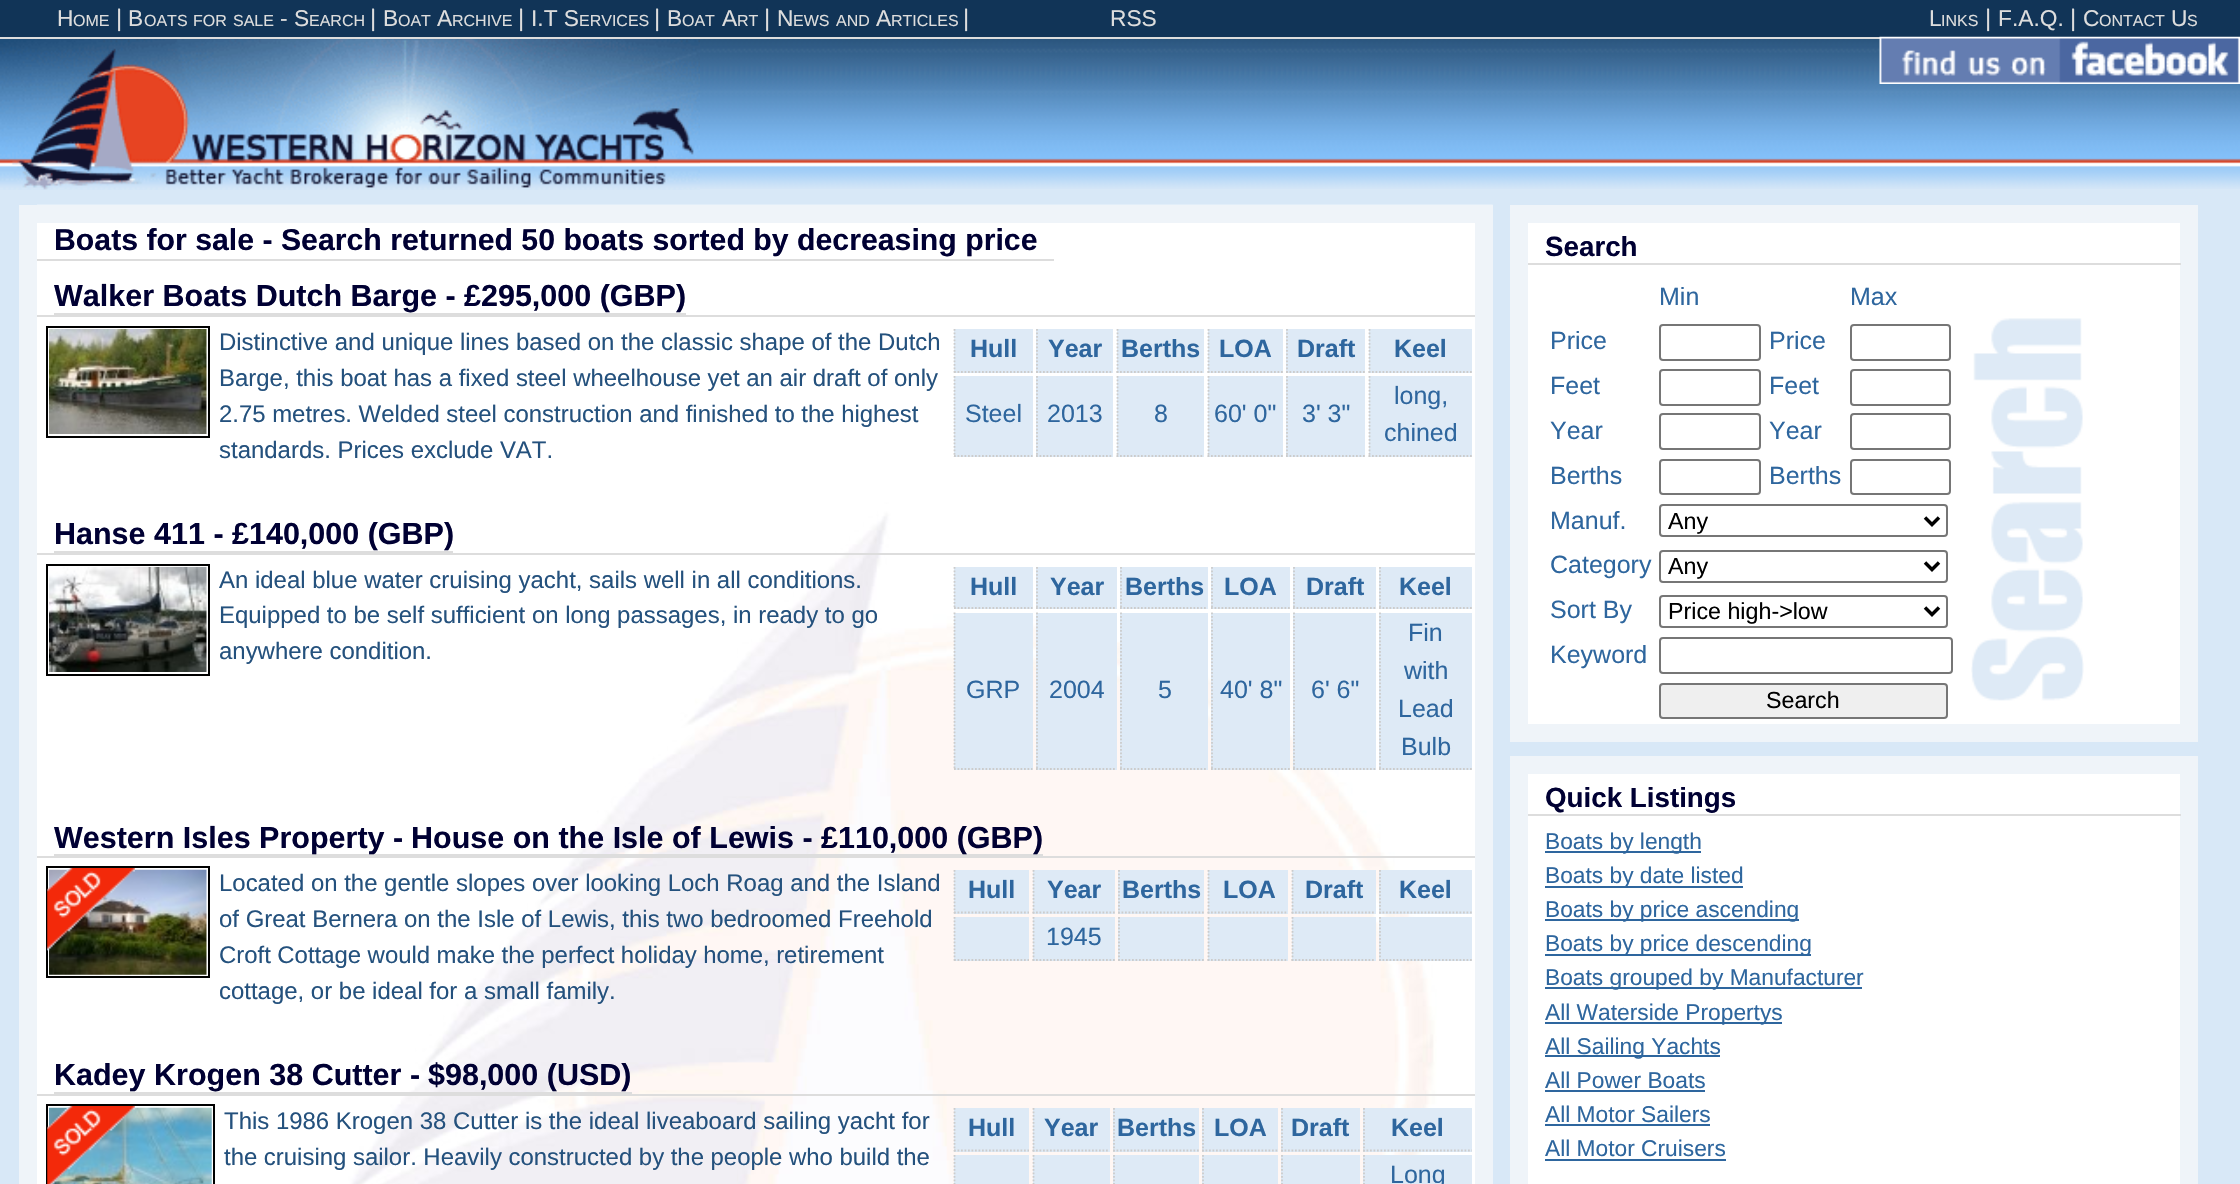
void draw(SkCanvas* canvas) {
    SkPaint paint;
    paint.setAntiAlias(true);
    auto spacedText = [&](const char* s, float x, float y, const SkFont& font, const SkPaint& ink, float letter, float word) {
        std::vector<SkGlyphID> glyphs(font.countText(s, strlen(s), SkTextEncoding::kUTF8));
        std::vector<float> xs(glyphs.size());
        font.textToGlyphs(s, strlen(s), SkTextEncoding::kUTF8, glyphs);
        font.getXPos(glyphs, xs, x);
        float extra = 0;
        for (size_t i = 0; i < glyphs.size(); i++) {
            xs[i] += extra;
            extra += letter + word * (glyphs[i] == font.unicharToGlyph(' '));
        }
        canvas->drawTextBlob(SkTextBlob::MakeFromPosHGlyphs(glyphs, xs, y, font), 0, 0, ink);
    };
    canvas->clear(0xFFD8E8F7);
    paint.setColor(0xFF113457);
    canvas->drawRect(SkRect::MakeXYWH(0, 0, 2240, 37), paint);
    paint.setColor(0xFFDDDDDD);
    canvas->drawRect(SkRect::MakeXYWH(0, 37, 1880, 2), paint);
    SkFont font1(fontMgr->matchFamilyStyle("Liberation Sans", SkFontStyle::Normal()), 22.75f);
    font1.setSubpixel(true);
    canvas->drawString("H", 57, 26, font1, paint);
    SkFont font2(fontMgr->matchFamilyStyle("Liberation Sans", SkFontStyle::Normal()), 16);
    font2.setSubpixel(true);
    canvas->drawString("OME", 73, 26, font2, paint);
    SkFont font3(fontMgr->matchFamilyStyle("Liberation Sans", SkFontStyle::Normal()), 23.95f);
    font3.setSubpixel(true);
    canvas->drawString("|", 116, 26, font3, paint);
    canvas->drawString("B", 128, 26, font1, paint);
    canvas->drawString("OATS", 144, 26, font2, paint);
    canvas->drawString("FOR", 193, 26, font2, paint);
    canvas->drawString("SALE", 233, 26, font2, paint);
    canvas->drawString("- S", 280, 26, font1, paint);
    canvas->drawString("EARCH", 309, 26, font2, paint);
    canvas->drawString("|", 370, 26, font3, paint);
    canvas->drawString("B", 383, 26, font1, paint);
    canvas->drawString("OAT", 398, 26, font2, paint);
    canvas->drawString("A", 437, 26, font1, paint);
    canvas->drawString("RCHIVE", 452, 26, font2, paint);
    canvas->drawString("|", 518, 26, font3, paint);
    canvas->drawString("I.T S", 531, 26, font1, paint);
    canvas->drawString("ERVICES", 579, 26, font2, paint);
    canvas->drawString("|", 654, 26, font3, paint);
    canvas->drawString("B", 667, 26, font1, paint);
    canvas->drawString("OAT", 682, 26, font2, paint);
    canvas->drawString("A", 722, 26, font1, paint);
    canvas->drawString("RT", 737, 26, font2, paint);
    canvas->drawString("|", 764, 26, font3, paint);
    canvas->drawString("N", 777, 26, font1, paint);
    canvas->drawString("EWS", 793, 26, font2, paint);
    canvas->drawString("AND", 836, 26, font2, paint);
    canvas->drawString("A", 876, 26, font1, paint);
    canvas->drawString("RTICLES", 891, 26, font2, paint);
    canvas->drawString("|", 963, 26, font3, paint);
    canvas->drawString("RSS", 1110, 26, font1, paint);
    canvas->drawString("L", 1929, 26, font1, paint);
    canvas->drawString("INKS", 1941, 26, font2, paint);
    canvas->drawString("|", 1985, 26, font3, paint);
    canvas->drawString("F.A.Q.", 1998, 26, font1, paint);
    canvas->drawString("|", 2070, 26, font3, paint);
    canvas->drawString("C", 2083, 26, font1, paint);
    canvas->drawString("ONTACT", 2099, 26, font2, paint);
    canvas->drawString("U", 2171, 26, font1, paint);
    canvas->drawString("S", 2187, 26, font2, paint);
    canvas->drawImageRect(SkImages::DeferredFromEncodedData(SkData::MakeFromFileName("img1.png")), SkRect::MakeXYWH(700, 39, 1540, 150), SkSamplingOptions());
    canvas->drawImageRect(SkImages::DeferredFromEncodedData(SkData::MakeFromFileName("img2.png")), SkRect::MakeXYWH(0, 39, 700, 151), SkSamplingOptions());
    canvas->drawImageRect(SkImages::DeferredFromEncodedData(SkData::MakeFromFileName("img3.png")), SkRect::MakeXYWH(1879, 36, 361, 48), SkSamplingOptions());
    canvas->drawImageRect(SkImages::DeferredFromEncodedData(SkData::MakeFromFileName("img4.png")), SkRect::MakeXYWH(37, 204, 1456, 980), SkSamplingOptions());
    paint.setStyle(SkPaint::kStroke_Style);
    paint.setStrokeWidth(18);
    paint.setColor(0xFFEFF4F9);
    canvas->drawRect(SkRect::MakeXYWH(28, 214, 1456, 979), paint);
    paint.setStyle(SkPaint::kFill_Style);
    paint.setColor(0xFFDDDDDD);
    canvas->drawRect(SkRect::MakeXYWH(37, 259, 1017, 2), paint);
    SkFont font4(fontMgr->matchFamilyStyle("Liberation Sans", SkFontStyle::Bold()), 30.25f);
    font4.setSubpixel(true);
    paint.setColor(0xFF000033);
    canvas->drawString("Boats for sale - Search returned 50 boats sorted by decreasing price", 54, 250, font4, paint);
    paint.setColor(0xFFDDDDDD);
    canvas->drawRect(SkRect::MakeXYWH(37, 315, 1438, 2), paint);
    SkFont font5(fontMgr->matchFamilyStyle("Liberation Sans", SkFontStyle::Bold()), 30.5f);
    font5.setSubpixel(true);
    paint.setColor(0xFF000033);
    canvas->drawString("Walker Boats Dutch Barge -", 54, 306, font5, paint);
    paint.setColor(0xFFDDDDDD);
    canvas->drawRect(SkRect::MakeXYWH(54, 313, 632, 2), paint);
    paint.setColor(0xFF000033);
    canvas->drawString("£295,000 (GBP)", 464, 306, font5, paint);
    paint.setStyle(SkPaint::kStroke_Style);
    paint.setStrokeWidth(2);
    paint.setColor(0xFF000000);
    canvas->drawRect(SkRect::MakeXYWH(47, 327, 162, 110), paint);
    canvas->drawImageRect(SkImages::DeferredFromEncodedData(SkData::MakeFromFileName("img5.png")), SkRect::MakeXYWH(49, 329, 158, 105), SkSamplingOptions());
    paint.setStyle(SkPaint::kFill_Style);
    paint.setColor(0xFF24517D);
    canvas->drawString("Distinctive and unique lines based on the classic shape of the Dutch", 219, 350, font3, paint);
    canvas->drawString("Barge, this boat has a fixed steel wheelhouse yet an air draft of only", 219, 386, font3, paint);
    spacedText("2.75 metres. Welded steel construction and finished to the highest", 219, 422, font3, paint, 0, -0.1f);
    canvas->drawString("standards. Prices exclude VAT.", 219, 458, font3, paint);
    paint.setColor(0xFFDEEAF6);
    canvas->drawRect(SkRect::MakeXYWH(954, 329, 79, 44), paint);
    paint.setStyle(SkPaint::kStroke_Style);
    paint.setStrokeWidth(1.8f);
    paint.setColor(0xFFCCCCCC);
    paint.setPathEffect(SkDashPathEffect::Make({{1.75f, 1.75f}}, 0));
    canvas->drawPath(SkPathBuilder().moveTo(954, 372).lineTo(1032.5f, 372).detach(), paint);
    paint.setPathEffect(nullptr);
    paint.setPathEffect(SkDashPathEffect::Make({{1.75f, 1.75f}}, 0));
    canvas->drawPath(SkPathBuilder().moveTo(954.5f, 329).lineTo(954.5f, 373).detach(), paint);
    paint.setPathEffect(nullptr);
    SkFont font6(fontMgr->matchFamilyStyle("Liberation Sans", SkFontStyle::Bold()), 25);
    font6.setSubpixel(true);
    paint.setStyle(SkPaint::kFill_Style);
    paint.setColor(0xFF2E669E);
    canvas->drawString("Hull", 970, 357, font6, paint);
    paint.setColor(0xFFDEEAF6);
    canvas->drawRect(SkRect::MakeXYWH(1036, 329, 77, 44), paint);
    paint.setStyle(SkPaint::kStroke_Style);
    paint.setColor(0xFFCCCCCC);
    paint.setPathEffect(SkDashPathEffect::Make({{1.75f, 1.75f}}, 0));
    canvas->drawPath(SkPathBuilder().moveTo(1036, 372).lineTo(1113, 372).detach(), paint);
    paint.setPathEffect(nullptr);
    paint.setPathEffect(SkDashPathEffect::Make({{1.75f, 1.75f}}, 0));
    canvas->drawPath(SkPathBuilder().moveTo(1037, 329).lineTo(1037, 373).detach(), paint);
    paint.setPathEffect(nullptr);
    paint.setStyle(SkPaint::kFill_Style);
    paint.setColor(0xFF2E669E);
    canvas->drawString("Year", 1048, 357, font6, paint);
    paint.setColor(0xFFDEEAF6);
    canvas->drawRect(SkRect::MakeXYWH(1117, 329, 87, 44), paint);
    paint.setStyle(SkPaint::kStroke_Style);
    paint.setColor(0xFFCCCCCC);
    paint.setPathEffect(SkDashPathEffect::Make({{1.75f, 1.75f}}, 0));
    canvas->drawPath(SkPathBuilder().moveTo(1116.5f, 372).lineTo(1204, 372).detach(), paint);
    paint.setPathEffect(nullptr);
    paint.setPathEffect(SkDashPathEffect::Make({{1.75f, 1.75f}}, 0));
    canvas->drawPath(SkPathBuilder().moveTo(1117.5f, 329).lineTo(1117.5f, 373).detach(), paint);
    paint.setPathEffect(nullptr);
    paint.setStyle(SkPaint::kFill_Style);
    paint.setColor(0xFF2E669E);
    canvas->drawString("Berths", 1121, 357, font6, paint);
    paint.setColor(0xFFDEEAF6);
    canvas->drawRect(SkRect::MakeXYWH(1208, 329, 75, 44), paint);
    paint.setStyle(SkPaint::kStroke_Style);
    paint.setColor(0xFFCCCCCC);
    paint.setPathEffect(SkDashPathEffect::Make({{1.75f, 1.75f}}, 0));
    canvas->drawPath(SkPathBuilder().moveTo(1207.5f, 372).lineTo(1283, 372).detach(), paint);
    paint.setPathEffect(nullptr);
    paint.setPathEffect(SkDashPathEffect::Make({{1.75f, 1.75f}}, 0));
    canvas->drawPath(SkPathBuilder().moveTo(1208.5f, 329).lineTo(1208.5f, 373).detach(), paint);
    paint.setPathEffect(nullptr);
    paint.setStyle(SkPaint::kFill_Style);
    paint.setColor(0xFF2E669E);
    canvas->drawString("LOA", 1219, 357, font6, paint);
    paint.setColor(0xFFDEEAF6);
    canvas->drawRect(SkRect::MakeXYWH(1286, 329, 79, 44), paint);
    paint.setStyle(SkPaint::kStroke_Style);
    paint.setColor(0xFFCCCCCC);
    paint.setPathEffect(SkDashPathEffect::Make({{1.75f, 1.75f}}, 0));
    canvas->drawPath(SkPathBuilder().moveTo(1286, 372).lineTo(1365, 372).detach(), paint);
    paint.setPathEffect(nullptr);
    paint.setPathEffect(SkDashPathEffect::Make({{1.75f, 1.75f}}, 0));
    canvas->drawPath(SkPathBuilder().moveTo(1287, 329).lineTo(1287, 373).detach(), paint);
    paint.setPathEffect(nullptr);
    paint.setStyle(SkPaint::kFill_Style);
    paint.setColor(0xFF2E669E);
    canvas->drawString("Draft", 1297, 357, font6, paint);
    paint.setColor(0xFFDEEAF6);
    canvas->drawRect(SkRect::MakeXYWH(1369, 329, 103, 44), paint);
    paint.setStyle(SkPaint::kStroke_Style);
    paint.setColor(0xFFCCCCCC);
    paint.setPathEffect(SkDashPathEffect::Make({{1.75f, 1.75f}}, 0));
    canvas->drawPath(SkPathBuilder().moveTo(1368.5f, 372).lineTo(1472, 372).detach(), paint);
    paint.setPathEffect(nullptr);
    paint.setPathEffect(SkDashPathEffect::Make({{1.75f, 1.75f}}, 0));
    canvas->drawPath(SkPathBuilder().moveTo(1369.5f, 329).lineTo(1369.5f, 373).detach(), paint);
    paint.setPathEffect(nullptr);
    paint.setStyle(SkPaint::kFill_Style);
    paint.setColor(0xFF2E669E);
    canvas->drawString("Keel", 1394, 357, font6, paint);
    paint.setColor(0xFFDEEAF6);
    canvas->drawRect(SkRect::MakeXYWH(954, 376, 79, 81), paint);
    paint.setStyle(SkPaint::kStroke_Style);
    paint.setColor(0xFFCCCCCC);
    paint.setPathEffect(SkDashPathEffect::Make({{1.75f, 1.75f}}, 0));
    canvas->drawPath(SkPathBuilder().moveTo(954, 456).lineTo(1032.5f, 456).detach(), paint);
    paint.setPathEffect(nullptr);
    paint.setPathEffect(SkDashPathEffect::Make({{1.75f, 1.75f}}, 0));
    canvas->drawPath(SkPathBuilder().moveTo(954.5f, 376).lineTo(954.5f, 457).detach(), paint);
    paint.setPathEffect(nullptr);
    SkFont font7(fontMgr->matchFamilyStyle("Liberation Sans", SkFontStyle::Normal()), 25);
    font7.setSubpixel(true);
    paint.setStyle(SkPaint::kFill_Style);
    paint.setColor(0xFF2E669E);
    canvas->drawString("Steel", 965, 422, font7, paint);
    paint.setColor(0xFFDEEAF6);
    canvas->drawRect(SkRect::MakeXYWH(1036, 376, 77, 81), paint);
    paint.setStyle(SkPaint::kStroke_Style);
    paint.setColor(0xFFCCCCCC);
    paint.setPathEffect(SkDashPathEffect::Make({{1.75f, 1.75f}}, 0));
    canvas->drawPath(SkPathBuilder().moveTo(1036, 456).lineTo(1113, 456).detach(), paint);
    paint.setPathEffect(nullptr);
    paint.setPathEffect(SkDashPathEffect::Make({{1.75f, 1.75f}}, 0));
    canvas->drawPath(SkPathBuilder().moveTo(1037, 376).lineTo(1037, 457).detach(), paint);
    paint.setPathEffect(nullptr);
    paint.setStyle(SkPaint::kFill_Style);
    paint.setColor(0xFF2E669E);
    canvas->drawString("2013", 1047, 422, font7, paint);
    paint.setColor(0xFFDEEAF6);
    canvas->drawRect(SkRect::MakeXYWH(1117, 376, 87, 81), paint);
    paint.setStyle(SkPaint::kStroke_Style);
    paint.setColor(0xFFCCCCCC);
    paint.setPathEffect(SkDashPathEffect::Make({{1.75f, 1.75f}}, 0));
    canvas->drawPath(SkPathBuilder().moveTo(1116.5f, 456).lineTo(1204, 456).detach(), paint);
    paint.setPathEffect(nullptr);
    paint.setPathEffect(SkDashPathEffect::Make({{1.75f, 1.75f}}, 0));
    canvas->drawPath(SkPathBuilder().moveTo(1117.5f, 376).lineTo(1117.5f, 457).detach(), paint);
    paint.setPathEffect(nullptr);
    paint.setStyle(SkPaint::kFill_Style);
    paint.setColor(0xFF2E669E);
    canvas->drawString("8", 1154, 422, font7, paint);
    paint.setColor(0xFFDEEAF6);
    canvas->drawRect(SkRect::MakeXYWH(1208, 376, 75, 81), paint);
    paint.setStyle(SkPaint::kStroke_Style);
    paint.setColor(0xFFCCCCCC);
    paint.setPathEffect(SkDashPathEffect::Make({{1.75f, 1.75f}}, 0));
    canvas->drawPath(SkPathBuilder().moveTo(1207.5f, 456).lineTo(1283, 456).detach(), paint);
    paint.setPathEffect(nullptr);
    paint.setPathEffect(SkDashPathEffect::Make({{1.75f, 1.75f}}, 0));
    canvas->drawPath(SkPathBuilder().moveTo(1208.5f, 376).lineTo(1208.5f, 457).detach(), paint);
    paint.setPathEffect(nullptr);
    paint.setStyle(SkPaint::kFill_Style);
    paint.setColor(0xFF2E669E);
    canvas->drawString("60' 0\"", 1214, 422, font7, paint);
    paint.setColor(0xFFDEEAF6);
    canvas->drawRect(SkRect::MakeXYWH(1286, 376, 79, 81), paint);
    paint.setStyle(SkPaint::kStroke_Style);
    paint.setColor(0xFFCCCCCC);
    paint.setPathEffect(SkDashPathEffect::Make({{1.75f, 1.75f}}, 0));
    canvas->drawPath(SkPathBuilder().moveTo(1286, 456).lineTo(1365, 456).detach(), paint);
    paint.setPathEffect(nullptr);
    paint.setPathEffect(SkDashPathEffect::Make({{1.75f, 1.75f}}, 0));
    canvas->drawPath(SkPathBuilder().moveTo(1287, 376).lineTo(1287, 457).detach(), paint);
    paint.setPathEffect(nullptr);
    paint.setStyle(SkPaint::kFill_Style);
    paint.setColor(0xFF2E669E);
    canvas->drawString("3' 3\"", 1302, 422, font7, paint);
    paint.setColor(0xFFDEEAF6);
    canvas->drawRect(SkRect::MakeXYWH(1369, 376, 103, 81), paint);
    paint.setStyle(SkPaint::kStroke_Style);
    paint.setColor(0xFFCCCCCC);
    paint.setPathEffect(SkDashPathEffect::Make({{1.75f, 1.75f}}, 0));
    canvas->drawPath(SkPathBuilder().moveTo(1368.5f, 456).lineTo(1472, 456).detach(), paint);
    paint.setPathEffect(nullptr);
    paint.setPathEffect(SkDashPathEffect::Make({{1.75f, 1.75f}}, 0));
    canvas->drawPath(SkPathBuilder().moveTo(1369.5f, 376).lineTo(1369.5f, 457).detach(), paint);
    paint.setPathEffect(nullptr);
    paint.setStyle(SkPaint::kFill_Style);
    paint.setColor(0xFF2E669E);
    canvas->drawString("long,", 1394, 404, font7, paint);
    canvas->drawString("chined", 1384, 441, font7, paint);
    paint.setColor(0xFFDDDDDD);
    canvas->drawRect(SkRect::MakeXYWH(37, 553, 1438, 2), paint);
    paint.setColor(0xFF000033);
    canvas->drawString("Hanse 411 - £140,000 (GBP)", 54, 544, font5, paint);
    paint.setColor(0xFFDDDDDD);
    canvas->drawRect(SkRect::MakeXYWH(54, 551, 399, 2), paint);
    paint.setStyle(SkPaint::kStroke_Style);
    paint.setStrokeWidth(2);
    paint.setColor(0xFF000000);
    canvas->drawRect(SkRect::MakeXYWH(47, 565, 162, 110), paint);
    canvas->drawImageRect(SkImages::DeferredFromEncodedData(SkData::MakeFromFileName("img6.png")), SkRect::MakeXYWH(49, 567, 158, 105), SkSamplingOptions());
    paint.setStyle(SkPaint::kFill_Style);
    paint.setColor(0xFF24517D);
    canvas->drawString("An ideal blue water cruising yacht, sails well in all conditions.", 219, 588, font3, paint);
    canvas->drawString("Equipped to be self sufficient on long passages, in ready to go", 219, 623, font3, paint);
    canvas->drawString("anywhere condition.", 219, 659, font3, paint);
    paint.setColor(0xFFDEEAF6);
    canvas->drawRect(SkRect::MakeXYWH(954, 567, 79, 42), paint);
    paint.setStyle(SkPaint::kStroke_Style);
    paint.setStrokeWidth(1.8f);
    paint.setColor(0xFFCCCCCC);
    paint.setPathEffect(SkDashPathEffect::Make({{1.75f, 1.75f}}, 0));
    canvas->drawPath(SkPathBuilder().moveTo(954, 608).lineTo(1032.5f, 608).detach(), paint);
    paint.setPathEffect(nullptr);
    paint.setPathEffect(SkDashPathEffect::Make({{1.75f, 1.75f}}, 0));
    canvas->drawPath(SkPathBuilder().moveTo(954.5f, 567).lineTo(954.5f, 609).detach(), paint);
    paint.setPathEffect(nullptr);
    paint.setStyle(SkPaint::kFill_Style);
    paint.setColor(0xFF2E669E);
    canvas->drawString("Hull", 970, 595, font6, paint);
    paint.setColor(0xFFDEEAF6);
    canvas->drawRect(SkRect::MakeXYWH(1036, 567, 81, 42), paint);
    paint.setStyle(SkPaint::kStroke_Style);
    paint.setColor(0xFFCCCCCC);
    paint.setPathEffect(SkDashPathEffect::Make({{1.75f, 1.75f}}, 0));
    canvas->drawPath(SkPathBuilder().moveTo(1036, 608).lineTo(1116.5f, 608).detach(), paint);
    paint.setPathEffect(nullptr);
    paint.setPathEffect(SkDashPathEffect::Make({{1.75f, 1.75f}}, 0));
    canvas->drawPath(SkPathBuilder().moveTo(1037, 567).lineTo(1037, 609).detach(), paint);
    paint.setPathEffect(nullptr);
    paint.setStyle(SkPaint::kFill_Style);
    paint.setColor(0xFF2E669E);
    canvas->drawString("Year", 1050, 595, font6, paint);
    paint.setColor(0xFFDEEAF6);
    canvas->drawRect(SkRect::MakeXYWH(1120, 567, 88, 42), paint);
    paint.setStyle(SkPaint::kStroke_Style);
    paint.setColor(0xFFCCCCCC);
    paint.setPathEffect(SkDashPathEffect::Make({{1.75f, 1.75f}}, 0));
    canvas->drawPath(SkPathBuilder().moveTo(1120, 608).lineTo(1207.5f, 608).detach(), paint);
    paint.setPathEffect(nullptr);
    paint.setPathEffect(SkDashPathEffect::Make({{1.75f, 1.75f}}, 0));
    canvas->drawPath(SkPathBuilder().moveTo(1121, 567).lineTo(1121, 609).detach(), paint);
    paint.setPathEffect(nullptr);
    paint.setStyle(SkPaint::kFill_Style);
    paint.setColor(0xFF2E669E);
    canvas->drawString("Berths", 1125, 595, font6, paint);
    paint.setColor(0xFFDEEAF6);
    canvas->drawRect(SkRect::MakeXYWH(1211, 567, 79, 42), paint);
    paint.setStyle(SkPaint::kStroke_Style);
    paint.setColor(0xFFCCCCCC);
    paint.setPathEffect(SkDashPathEffect::Make({{1.75f, 1.75f}}, 0));
    canvas->drawPath(SkPathBuilder().moveTo(1211, 608).lineTo(1290, 608).detach(), paint);
    paint.setPathEffect(nullptr);
    paint.setPathEffect(SkDashPathEffect::Make({{1.75f, 1.75f}}, 0));
    canvas->drawPath(SkPathBuilder().moveTo(1212, 567).lineTo(1212, 609).detach(), paint);
    paint.setPathEffect(nullptr);
    paint.setStyle(SkPaint::kFill_Style);
    paint.setColor(0xFF2E669E);
    canvas->drawString("LOA", 1224, 595, font6, paint);
    paint.setColor(0xFFDEEAF6);
    canvas->drawRect(SkRect::MakeXYWH(1293, 567, 83, 42), paint);
    paint.setStyle(SkPaint::kStroke_Style);
    paint.setColor(0xFFCCCCCC);
    paint.setPathEffect(SkDashPathEffect::Make({{1.75f, 1.75f}}, 0));
    canvas->drawPath(SkPathBuilder().moveTo(1293, 608).lineTo(1375.5f, 608).detach(), paint);
    paint.setPathEffect(nullptr);
    paint.setPathEffect(SkDashPathEffect::Make({{1.75f, 1.75f}}, 0));
    canvas->drawPath(SkPathBuilder().moveTo(1294, 567).lineTo(1294, 609).detach(), paint);
    paint.setPathEffect(nullptr);
    paint.setStyle(SkPaint::kFill_Style);
    paint.setColor(0xFF2E669E);
    canvas->drawString("Draft", 1306, 595, font6, paint);
    paint.setColor(0xFFDEEAF6);
    canvas->drawRect(SkRect::MakeXYWH(1379, 567, 93, 42), paint);
    paint.setStyle(SkPaint::kStroke_Style);
    paint.setColor(0xFFCCCCCC);
    paint.setPathEffect(SkDashPathEffect::Make({{1.75f, 1.75f}}, 0));
    canvas->drawPath(SkPathBuilder().moveTo(1379, 608).lineTo(1472, 608).detach(), paint);
    paint.setPathEffect(nullptr);
    paint.setPathEffect(SkDashPathEffect::Make({{1.75f, 1.75f}}, 0));
    canvas->drawPath(SkPathBuilder().moveTo(1380, 567).lineTo(1380, 609).detach(), paint);
    paint.setPathEffect(nullptr);
    paint.setStyle(SkPaint::kFill_Style);
    paint.setColor(0xFF2E669E);
    canvas->drawString("Keel", 1399, 595, font6, paint);
    paint.setColor(0xFFDEEAF6);
    canvas->drawRect(SkRect::MakeXYWH(954, 613, 79, 157), paint);
    paint.setStyle(SkPaint::kStroke_Style);
    paint.setColor(0xFFCCCCCC);
    paint.setPathEffect(SkDashPathEffect::Make({{1.75f, 1.75f}}, 0));
    canvas->drawPath(SkPathBuilder().moveTo(954, 769).lineTo(1032.5f, 769).detach(), paint);
    paint.setPathEffect(nullptr);
    paint.setPathEffect(SkDashPathEffect::Make({{1.75f, 1.75f}}, 0));
    canvas->drawPath(SkPathBuilder().moveTo(954.5f, 612.5f).lineTo(954.5f, 770).detach(), paint);
    paint.setPathEffect(nullptr);
    paint.setStyle(SkPaint::kFill_Style);
    paint.setColor(0xFF2E669E);
    canvas->drawString("GRP", 966, 698, font7, paint);
    paint.setColor(0xFFDEEAF6);
    canvas->drawRect(SkRect::MakeXYWH(1036, 613, 81, 157), paint);
    paint.setStyle(SkPaint::kStroke_Style);
    paint.setColor(0xFFCCCCCC);
    paint.setPathEffect(SkDashPathEffect::Make({{1.75f, 1.75f}}, 0));
    canvas->drawPath(SkPathBuilder().moveTo(1036, 769).lineTo(1116.5f, 769).detach(), paint);
    paint.setPathEffect(nullptr);
    paint.setPathEffect(SkDashPathEffect::Make({{1.75f, 1.75f}}, 0));
    canvas->drawPath(SkPathBuilder().moveTo(1037, 612.5f).lineTo(1037, 770).detach(), paint);
    paint.setPathEffect(nullptr);
    paint.setStyle(SkPaint::kFill_Style);
    paint.setColor(0xFF2E669E);
    canvas->drawString("2004", 1049, 698, font7, paint);
    paint.setColor(0xFFDEEAF6);
    canvas->drawRect(SkRect::MakeXYWH(1120, 613, 88, 157), paint);
    paint.setStyle(SkPaint::kStroke_Style);
    paint.setColor(0xFFCCCCCC);
    paint.setPathEffect(SkDashPathEffect::Make({{1.75f, 1.75f}}, 0));
    canvas->drawPath(SkPathBuilder().moveTo(1120, 769).lineTo(1207.5f, 769).detach(), paint);
    paint.setPathEffect(nullptr);
    paint.setPathEffect(SkDashPathEffect::Make({{1.75f, 1.75f}}, 0));
    canvas->drawPath(SkPathBuilder().moveTo(1121, 612.5f).lineTo(1121, 770).detach(), paint);
    paint.setPathEffect(nullptr);
    paint.setStyle(SkPaint::kFill_Style);
    paint.setColor(0xFF2E669E);
    canvas->drawString("5", 1158, 698, font7, paint);
    paint.setColor(0xFFDEEAF6);
    canvas->drawRect(SkRect::MakeXYWH(1211, 613, 79, 157), paint);
    paint.setStyle(SkPaint::kStroke_Style);
    paint.setColor(0xFFCCCCCC);
    paint.setPathEffect(SkDashPathEffect::Make({{1.75f, 1.75f}}, 0));
    canvas->drawPath(SkPathBuilder().moveTo(1211, 769).lineTo(1290, 769).detach(), paint);
    paint.setPathEffect(nullptr);
    paint.setPathEffect(SkDashPathEffect::Make({{1.75f, 1.75f}}, 0));
    canvas->drawPath(SkPathBuilder().moveTo(1212, 612.5f).lineTo(1212, 770).detach(), paint);
    paint.setPathEffect(nullptr);
    paint.setStyle(SkPaint::kFill_Style);
    paint.setColor(0xFF2E669E);
    canvas->drawString("40' 8\"", 1220, 698, font7, paint);
    paint.setColor(0xFFDEEAF6);
    canvas->drawRect(SkRect::MakeXYWH(1293, 613, 83, 157), paint);
    paint.setStyle(SkPaint::kStroke_Style);
    paint.setColor(0xFFCCCCCC);
    paint.setPathEffect(SkDashPathEffect::Make({{1.75f, 1.75f}}, 0));
    canvas->drawPath(SkPathBuilder().moveTo(1293, 769).lineTo(1375.5f, 769).detach(), paint);
    paint.setPathEffect(nullptr);
    paint.setPathEffect(SkDashPathEffect::Make({{1.75f, 1.75f}}, 0));
    canvas->drawPath(SkPathBuilder().moveTo(1294, 612.5f).lineTo(1294, 770).detach(), paint);
    paint.setPathEffect(nullptr);
    paint.setStyle(SkPaint::kFill_Style);
    paint.setColor(0xFF2E669E);
    canvas->drawString("6' 6\"", 1311, 698, font7, paint);
    paint.setColor(0xFFDEEAF6);
    canvas->drawRect(SkRect::MakeXYWH(1379, 613, 93, 157), paint);
    paint.setStyle(SkPaint::kStroke_Style);
    paint.setColor(0xFFCCCCCC);
    paint.setPathEffect(SkDashPathEffect::Make({{1.75f, 1.75f}}, 0));
    canvas->drawPath(SkPathBuilder().moveTo(1379, 769).lineTo(1472, 769).detach(), paint);
    paint.setPathEffect(nullptr);
    paint.setPathEffect(SkDashPathEffect::Make({{1.75f, 1.75f}}, 0));
    canvas->drawPath(SkPathBuilder().moveTo(1380, 612.5f).lineTo(1380, 770).detach(), paint);
    paint.setPathEffect(nullptr);
    paint.setStyle(SkPaint::kFill_Style);
    paint.setColor(0xFF2E669E);
    canvas->drawString("Fin", 1408, 641, font7, paint);
    canvas->drawString("with", 1404, 679, font7, paint);
    canvas->drawString("Lead", 1398, 717, font7, paint);
    canvas->drawString("Bulb", 1401, 755, font7, paint);
    paint.setColor(0xFFDDDDDD);
    canvas->drawRect(SkRect::MakeXYWH(37, 856, 1438, 2), paint);
    canvas->drawRect(SkRect::MakeXYWH(54, 854, 989, 2), paint);
    paint.setColor(0xFF000033);
    canvas->drawString("Western Isles Property -", 54, 848, font5, paint);
    canvas->drawString("House on the Isle of Lewis -", 411, 848, font5, paint);
    canvas->drawString("£110,000 (GBP)", 821, 848, font5, paint);
    paint.setStyle(SkPaint::kStroke_Style);
    paint.setStrokeWidth(2);
    paint.setColor(0xFF000000);
    canvas->drawRect(SkRect::MakeXYWH(47, 867, 162, 110), paint);
    canvas->drawImageRect(SkImages::DeferredFromEncodedData(SkData::MakeFromFileName("img8.png")), SkRect::MakeXYWH(49, 869, 158, 106), SkSamplingOptions());
    canvas->drawImageRect(SkImages::DeferredFromEncodedData(SkData::MakeFromFileName("img7.png")), SkRect::MakeXYWH(47, 868, 88, 83), SkSamplingOptions());
    paint.setStyle(SkPaint::kFill_Style);
    paint.setColor(0xFF24517D);
    canvas->drawString("Located on the gentle slopes over looking Loch Roag and the Island", 219, 891, font3, paint);
    canvas->drawString("of Great Bernera on the Isle of Lewis, this two bedroomed Freehold", 219, 927, font3, paint);
    spacedText("Croft Cottage would make the perfect holiday home, retirement", 219, 963, font3, paint, 0, -0.25f);
    canvas->drawString("cottage, or be ideal for a small family.", 219, 999, font3, paint);
    paint.setColor(0xFFDEEAF6);
    canvas->drawRect(SkRect::MakeXYWH(954, 870, 75, 44), paint);
    paint.setStyle(SkPaint::kStroke_Style);
    paint.setStrokeWidth(1.8f);
    paint.setColor(0xFFCCCCCC);
    paint.setPathEffect(SkDashPathEffect::Make({{1.75f, 1.75f}}, 0));
    canvas->drawPath(SkPathBuilder().moveTo(954, 912.5f).lineTo(1029, 912.5f).detach(), paint);
    paint.setPathEffect(nullptr);
    paint.setPathEffect(SkDashPathEffect::Make({{1.75f, 1.75f}}, 0));
    canvas->drawPath(SkPathBuilder().moveTo(954.5f, 870).lineTo(954.5f, 913.5f).detach(), paint);
    paint.setPathEffect(nullptr);
    paint.setStyle(SkPaint::kFill_Style);
    paint.setColor(0xFF2E669E);
    canvas->drawString("Hull", 968, 898, font6, paint);
    paint.setColor(0xFFDEEAF6);
    canvas->drawRect(SkRect::MakeXYWH(1033, 870, 82, 44), paint);
    paint.setStyle(SkPaint::kStroke_Style);
    paint.setColor(0xFFCCCCCC);
    paint.setPathEffect(SkDashPathEffect::Make({{1.75f, 1.75f}}, 0));
    canvas->drawPath(SkPathBuilder().moveTo(1032.5f, 912.5f).lineTo(1115, 912.5f).detach(), paint);
    paint.setPathEffect(nullptr);
    paint.setPathEffect(SkDashPathEffect::Make({{1.75f, 1.75f}}, 0));
    canvas->drawPath(SkPathBuilder().moveTo(1033.5f, 870).lineTo(1033.5f, 913.5f).detach(), paint);
    paint.setPathEffect(nullptr);
    paint.setStyle(SkPaint::kFill_Style);
    paint.setColor(0xFF2E669E);
    canvas->drawString("Year", 1047, 898, font6, paint);
    paint.setColor(0xFFDEEAF6);
    canvas->drawRect(SkRect::MakeXYWH(1118, 870, 86, 44), paint);
    paint.setStyle(SkPaint::kStroke_Style);
    paint.setColor(0xFFCCCCCC);
    paint.setPathEffect(SkDashPathEffect::Make({{1.75f, 1.75f}}, 0));
    canvas->drawPath(SkPathBuilder().moveTo(1118, 912.5f).lineTo(1204, 912.5f).detach(), paint);
    paint.setPathEffect(nullptr);
    paint.setPathEffect(SkDashPathEffect::Make({{1.75f, 1.75f}}, 0));
    canvas->drawPath(SkPathBuilder().moveTo(1119, 870).lineTo(1119, 913.5f).detach(), paint);
    paint.setPathEffect(nullptr);
    paint.setStyle(SkPaint::kFill_Style);
    paint.setColor(0xFF2E669E);
    canvas->drawString("Berths", 1122, 898, font6, paint);
    paint.setColor(0xFFDEEAF6);
    canvas->drawRect(SkRect::MakeXYWH(1208, 870, 80, 44), paint);
    paint.setStyle(SkPaint::kStroke_Style);
    paint.setColor(0xFFCCCCCC);
    paint.setPathEffect(SkDashPathEffect::Make({{1.75f, 1.75f}}, 0));
    canvas->drawPath(SkPathBuilder().moveTo(1207.5f, 912.5f).lineTo(1288, 912.5f).detach(), paint);
    paint.setPathEffect(nullptr);
    paint.setPathEffect(SkDashPathEffect::Make({{1.75f, 1.75f}}, 0));
    canvas->drawPath(SkPathBuilder().moveTo(1208.5f, 870).lineTo(1208.5f, 913.5f).detach(), paint);
    paint.setPathEffect(nullptr);
    paint.setStyle(SkPaint::kFill_Style);
    paint.setColor(0xFF2E669E);
    canvas->drawString("LOA", 1223, 898, font6, paint);
    paint.setColor(0xFFDEEAF6);
    canvas->drawRect(SkRect::MakeXYWH(1292, 870, 84, 44), paint);
    paint.setStyle(SkPaint::kStroke_Style);
    paint.setColor(0xFFCCCCCC);
    paint.setPathEffect(SkDashPathEffect::Make({{1.75f, 1.75f}}, 0));
    canvas->drawPath(SkPathBuilder().moveTo(1291.5f, 912.5f).lineTo(1375.5f, 912.5f).detach(), paint);
    paint.setPathEffect(nullptr);
    paint.setPathEffect(SkDashPathEffect::Make({{1.75f, 1.75f}}, 0));
    canvas->drawPath(SkPathBuilder().moveTo(1292.5f, 870).lineTo(1292.5f, 913.5f).detach(), paint);
    paint.setPathEffect(nullptr);
    paint.setStyle(SkPaint::kFill_Style);
    paint.setColor(0xFF2E669E);
    canvas->drawString("Draft", 1305, 898, font6, paint);
    paint.setColor(0xFFDEEAF6);
    canvas->drawRect(SkRect::MakeXYWH(1379, 870, 93, 44), paint);
    paint.setStyle(SkPaint::kStroke_Style);
    paint.setColor(0xFFCCCCCC);
    paint.setPathEffect(SkDashPathEffect::Make({{1.75f, 1.75f}}, 0));
    canvas->drawPath(SkPathBuilder().moveTo(1379, 912.5f).lineTo(1472, 912.5f).detach(), paint);
    paint.setPathEffect(nullptr);
    paint.setPathEffect(SkDashPathEffect::Make({{1.75f, 1.75f}}, 0));
    canvas->drawPath(SkPathBuilder().moveTo(1380, 870).lineTo(1380, 913.5f).detach(), paint);
    paint.setPathEffect(nullptr);
    paint.setStyle(SkPaint::kFill_Style);
    paint.setColor(0xFF2E669E);
    canvas->drawString("Keel", 1399, 898, font6, paint);
    paint.setColor(0xFFDEEAF6);
    canvas->drawRect(SkRect::MakeXYWH(954, 917, 75, 44), paint);
    paint.setStyle(SkPaint::kStroke_Style);
    paint.setColor(0xFFCCCCCC);
    paint.setPathEffect(SkDashPathEffect::Make({{1.75f, 1.75f}}, 0));
    canvas->drawPath(SkPathBuilder().moveTo(954, 960).lineTo(1029, 960).detach(), paint);
    paint.setPathEffect(nullptr);
    paint.setPathEffect(SkDashPathEffect::Make({{1.75f, 1.75f}}, 0));
    canvas->drawPath(SkPathBuilder().moveTo(954.5f, 917).lineTo(954.5f, 961).detach(), paint);
    paint.setPathEffect(nullptr);
    paint.setStyle(SkPaint::kFill_Style);
    paint.setColor(0xFFDEEAF6);
    canvas->drawRect(SkRect::MakeXYWH(1033, 917, 82, 44), paint);
    paint.setStyle(SkPaint::kStroke_Style);
    paint.setColor(0xFFCCCCCC);
    paint.setPathEffect(SkDashPathEffect::Make({{1.75f, 1.75f}}, 0));
    canvas->drawPath(SkPathBuilder().moveTo(1032.5f, 960).lineTo(1115, 960).detach(), paint);
    paint.setPathEffect(nullptr);
    paint.setPathEffect(SkDashPathEffect::Make({{1.75f, 1.75f}}, 0));
    canvas->drawPath(SkPathBuilder().moveTo(1033.5f, 917).lineTo(1033.5f, 961).detach(), paint);
    paint.setPathEffect(nullptr);
    paint.setStyle(SkPaint::kFill_Style);
    paint.setColor(0xFF2E669E);
    canvas->drawString("1945", 1046, 945, font7, paint);
    paint.setColor(0xFFDEEAF6);
    canvas->drawRect(SkRect::MakeXYWH(1118, 917, 86, 44), paint);
    paint.setStyle(SkPaint::kStroke_Style);
    paint.setColor(0xFFCCCCCC);
    paint.setPathEffect(SkDashPathEffect::Make({{1.75f, 1.75f}}, 0));
    canvas->drawPath(SkPathBuilder().moveTo(1118, 960).lineTo(1204, 960).detach(), paint);
    paint.setPathEffect(nullptr);
    paint.setPathEffect(SkDashPathEffect::Make({{1.75f, 1.75f}}, 0));
    canvas->drawPath(SkPathBuilder().moveTo(1119, 917).lineTo(1119, 961).detach(), paint);
    paint.setPathEffect(nullptr);
    paint.setStyle(SkPaint::kFill_Style);
    paint.setColor(0xFFDEEAF6);
    canvas->drawRect(SkRect::MakeXYWH(1208, 917, 80, 44), paint);
    paint.setStyle(SkPaint::kStroke_Style);
    paint.setColor(0xFFCCCCCC);
    paint.setPathEffect(SkDashPathEffect::Make({{1.75f, 1.75f}}, 0));
    canvas->drawPath(SkPathBuilder().moveTo(1207.5f, 960).lineTo(1288, 960).detach(), paint);
    paint.setPathEffect(nullptr);
    paint.setPathEffect(SkDashPathEffect::Make({{1.75f, 1.75f}}, 0));
    canvas->drawPath(SkPathBuilder().moveTo(1208.5f, 917).lineTo(1208.5f, 961).detach(), paint);
    paint.setPathEffect(nullptr);
    paint.setStyle(SkPaint::kFill_Style);
    paint.setColor(0xFFDEEAF6);
    canvas->drawRect(SkRect::MakeXYWH(1292, 917, 84, 44), paint);
    paint.setStyle(SkPaint::kStroke_Style);
    paint.setColor(0xFFCCCCCC);
    paint.setPathEffect(SkDashPathEffect::Make({{1.75f, 1.75f}}, 0));
    canvas->drawPath(SkPathBuilder().moveTo(1291.5f, 960).lineTo(1375.5f, 960).detach(), paint);
    paint.setPathEffect(nullptr);
    paint.setPathEffect(SkDashPathEffect::Make({{1.75f, 1.75f}}, 0));
    canvas->drawPath(SkPathBuilder().moveTo(1292.5f, 917).lineTo(1292.5f, 961).detach(), paint);
    paint.setPathEffect(nullptr);
    paint.setStyle(SkPaint::kFill_Style);
    paint.setColor(0xFFDEEAF6);
    canvas->drawRect(SkRect::MakeXYWH(1379, 917, 93, 44), paint);
    paint.setStyle(SkPaint::kStroke_Style);
    paint.setColor(0xFFCCCCCC);
    paint.setPathEffect(SkDashPathEffect::Make({{1.75f, 1.75f}}, 0));
    canvas->drawPath(SkPathBuilder().moveTo(1379, 960).lineTo(1472, 960).detach(), paint);
    paint.setPathEffect(nullptr);
    paint.setPathEffect(SkDashPathEffect::Make({{1.75f, 1.75f}}, 0));
    canvas->drawPath(SkPathBuilder().moveTo(1380, 917).lineTo(1380, 961).detach(), paint);
    paint.setPathEffect(nullptr);
    paint.setStyle(SkPaint::kFill_Style);
    paint.setColor(0xFFDDDDDD);
    canvas->drawRect(SkRect::MakeXYWH(37, 1094, 1438, 2), paint);
    paint.setColor(0xFF000033);
    canvas->drawString("Kadey Krogen 38 Cutter -", 54, 1085, font5, paint);
    paint.setColor(0xFFDDDDDD);
    canvas->drawRect(SkRect::MakeXYWH(54, 1092, 578, 2), paint);
    paint.setColor(0xFF000033);
    canvas->drawString("$98,000 (USD)", 428, 1085, font5, paint);
    paint.setStyle(SkPaint::kStroke_Style);
    paint.setStrokeWidth(2);
    paint.setColor(0xFF000000);
    canvas->drawRect(SkRect::MakeXYWH(47, 1105, 167, 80), paint);
    canvas->drawImageRect(SkImages::DeferredFromEncodedData(SkData::MakeFromFileName("img10.png")), SkRect::MakeXYWH(49, 1107, 163, 77), SkSamplingOptions());
    canvas->drawImageRect(SkImages::DeferredFromEncodedData(SkData::MakeFromFileName("img9.png")), SkRect::MakeXYWH(47, 1106, 88, 78), SkSamplingOptions());
    paint.setStyle(SkPaint::kFill_Style);
    paint.setColor(0xFF24517D);
    canvas->drawString("This 1986 Krogen 38 Cutter is the ideal liveaboard sailing yacht for", 224, 1129, font3, paint);
    spacedText("the cruising sailor. Heavily constructed by the people who build the", 224, 1165, font3, paint, 0, -0.1f);
    paint.setColor(0xFFDEEAF6);
    canvas->drawRect(SkRect::MakeXYWH(954, 1108, 75, 44), paint);
    paint.setStyle(SkPaint::kStroke_Style);
    paint.setStrokeWidth(1.8f);
    paint.setColor(0xFFCCCCCC);
    paint.setPathEffect(SkDashPathEffect::Make({{1.75f, 1.75f}}, 0));
    canvas->drawPath(SkPathBuilder().moveTo(954, 1150.5f).lineTo(1029, 1150.5f).detach(), paint);
    paint.setPathEffect(nullptr);
    paint.setPathEffect(SkDashPathEffect::Make({{1.75f, 1.75f}}, 0));
    canvas->drawPath(SkPathBuilder().moveTo(954.5f, 1108).lineTo(954.5f, 1151.5f).detach(), paint);
    paint.setPathEffect(nullptr);
    paint.setStyle(SkPaint::kFill_Style);
    paint.setColor(0xFF2E669E);
    canvas->drawString("Hull", 968, 1136, font6, paint);
    paint.setColor(0xFFDEEAF6);
    canvas->drawRect(SkRect::MakeXYWH(1033, 1108, 77, 44), paint);
    paint.setStyle(SkPaint::kStroke_Style);
    paint.setColor(0xFFCCCCCC);
    paint.setPathEffect(SkDashPathEffect::Make({{1.75f, 1.75f}}, 0));
    canvas->drawPath(SkPathBuilder().moveTo(1032.5f, 1150.5f).lineTo(1109.5f, 1150.5f).detach(), paint);
    paint.setPathEffect(nullptr);
    paint.setPathEffect(SkDashPathEffect::Make({{1.75f, 1.75f}}, 0));
    canvas->drawPath(SkPathBuilder().moveTo(1033.5f, 1108).lineTo(1033.5f, 1151.5f).detach(), paint);
    paint.setPathEffect(nullptr);
    paint.setStyle(SkPaint::kFill_Style);
    paint.setColor(0xFF2E669E);
    canvas->drawString("Year", 1044, 1136, font6, paint);
    paint.setColor(0xFFDEEAF6);
    canvas->drawRect(SkRect::MakeXYWH(1113, 1108, 86, 44), paint);
    paint.setStyle(SkPaint::kStroke_Style);
    paint.setColor(0xFFCCCCCC);
    paint.setPathEffect(SkDashPathEffect::Make({{1.75f, 1.75f}}, 0));
    canvas->drawPath(SkPathBuilder().moveTo(1113, 1150.5f).lineTo(1199, 1150.5f).detach(), paint);
    paint.setPathEffect(nullptr);
    paint.setPathEffect(SkDashPathEffect::Make({{1.75f, 1.75f}}, 0));
    canvas->drawPath(SkPathBuilder().moveTo(1114, 1108).lineTo(1114, 1151.5f).detach(), paint);
    paint.setPathEffect(nullptr);
    paint.setStyle(SkPaint::kFill_Style);
    paint.setColor(0xFF2E669E);
    canvas->drawString("Berths", 1117, 1136, font6, paint);
    paint.setColor(0xFFDEEAF6);
    canvas->drawRect(SkRect::MakeXYWH(1202, 1108, 76, 44), paint);
    paint.setStyle(SkPaint::kStroke_Style);
    paint.setColor(0xFFCCCCCC);
    paint.setPathEffect(SkDashPathEffect::Make({{1.75f, 1.75f}}, 0));
    canvas->drawPath(SkPathBuilder().moveTo(1202, 1150.5f).lineTo(1277.5f, 1150.5f).detach(), paint);
    paint.setPathEffect(nullptr);
    paint.setPathEffect(SkDashPathEffect::Make({{1.75f, 1.75f}}, 0));
    canvas->drawPath(SkPathBuilder().moveTo(1203, 1108).lineTo(1203, 1151.5f).detach(), paint);
    paint.setPathEffect(nullptr);
    paint.setStyle(SkPaint::kFill_Style);
    paint.setColor(0xFF2E669E);
    canvas->drawString("LOA", 1214, 1136, font6, paint);
    paint.setColor(0xFFDEEAF6);
    canvas->drawRect(SkRect::MakeXYWH(1281, 1108, 79, 44), paint);
    paint.setStyle(SkPaint::kStroke_Style);
    paint.setColor(0xFFCCCCCC);
    paint.setPathEffect(SkDashPathEffect::Make({{1.75f, 1.75f}}, 0));
    canvas->drawPath(SkPathBuilder().moveTo(1281, 1150.5f).lineTo(1360, 1150.5f).detach(), paint);
    paint.setPathEffect(nullptr);
    paint.setPathEffect(SkDashPathEffect::Make({{1.75f, 1.75f}}, 0));
    canvas->drawPath(SkPathBuilder().moveTo(1282, 1108).lineTo(1282, 1151.5f).detach(), paint);
    paint.setPathEffect(nullptr);
    paint.setStyle(SkPaint::kFill_Style);
    paint.setColor(0xFF2E669E);
    canvas->drawString("Draft", 1291, 1136, font6, paint);
    paint.setColor(0xFFDEEAF6);
    canvas->drawRect(SkRect::MakeXYWH(1363, 1108, 109, 44), paint);
    paint.setStyle(SkPaint::kStroke_Style);
    paint.setColor(0xFFCCCCCC);
    paint.setPathEffect(SkDashPathEffect::Make({{1.75f, 1.75f}}, 0));
    canvas->drawPath(SkPathBuilder().moveTo(1363, 1150.5f).lineTo(1472, 1150.5f).detach(), paint);
    paint.setPathEffect(nullptr);
    paint.setPathEffect(SkDashPathEffect::Make({{1.75f, 1.75f}}, 0));
    canvas->drawPath(SkPathBuilder().moveTo(1364, 1108).lineTo(1364, 1151.5f).detach(), paint);
    paint.setPathEffect(nullptr);
    paint.setStyle(SkPaint::kFill_Style);
    paint.setColor(0xFF2E669E);
    canvas->drawString("Keel", 1391, 1136, font6, paint);
    paint.setColor(0xFFDEEAF6);
    canvas->drawRect(SkRect::MakeXYWH(954, 1155, 75, 29), paint);
    paint.setStyle(SkPaint::kStroke_Style);
    paint.setColor(0xFFCCCCCC);
    paint.setPathEffect(SkDashPathEffect::Make({{1.75f, 1.75f}}, 0));
    canvas->drawPath(SkPathBuilder().moveTo(954.5f, 1155).lineTo(954.5f, 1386).detach(), paint);
    paint.setPathEffect(nullptr);
    paint.setStyle(SkPaint::kFill_Style);
    paint.setColor(0xFFDEEAF6);
    canvas->drawRect(SkRect::MakeXYWH(1033, 1155, 77, 29), paint);
    paint.setStyle(SkPaint::kStroke_Style);
    paint.setColor(0xFFCCCCCC);
    paint.setPathEffect(SkDashPathEffect::Make({{1.75f, 1.75f}}, 0));
    canvas->drawPath(SkPathBuilder().moveTo(1033.5f, 1155).lineTo(1033.5f, 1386).detach(), paint);
    paint.setPathEffect(nullptr);
    paint.setStyle(SkPaint::kFill_Style);
    paint.setColor(0xFFDEEAF6);
    canvas->drawRect(SkRect::MakeXYWH(1113, 1155, 86, 29), paint);
    paint.setStyle(SkPaint::kStroke_Style);
    paint.setColor(0xFFCCCCCC);
    paint.setPathEffect(SkDashPathEffect::Make({{1.75f, 1.75f}}, 0));
    canvas->drawPath(SkPathBuilder().moveTo(1114, 1155).lineTo(1114, 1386).detach(), paint);
    paint.setPathEffect(nullptr);
    paint.setStyle(SkPaint::kFill_Style);
    paint.setColor(0xFFDEEAF6);
    canvas->drawRect(SkRect::MakeXYWH(1202, 1155, 76, 29), paint);
    paint.setStyle(SkPaint::kStroke_Style);
    paint.setColor(0xFFCCCCCC);
    paint.setPathEffect(SkDashPathEffect::Make({{1.75f, 1.75f}}, 0));
    canvas->drawPath(SkPathBuilder().moveTo(1203, 1155).lineTo(1203, 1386).detach(), paint);
    paint.setPathEffect(nullptr);
    paint.setStyle(SkPaint::kFill_Style);
    paint.setColor(0xFFDEEAF6);
    canvas->drawRect(SkRect::MakeXYWH(1281, 1155, 79, 29), paint);
    paint.setStyle(SkPaint::kStroke_Style);
    paint.setColor(0xFFCCCCCC);
    paint.setPathEffect(SkDashPathEffect::Make({{1.75f, 1.75f}}, 0));
    canvas->drawPath(SkPathBuilder().moveTo(1282, 1155).lineTo(1282, 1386).detach(), paint);
    paint.setPathEffect(nullptr);
    paint.setStyle(SkPaint::kFill_Style);
    paint.setColor(0xFFDEEAF6);
    canvas->drawRect(SkRect::MakeXYWH(1363, 1155, 109, 29), paint);
    paint.setStyle(SkPaint::kStroke_Style);
    paint.setColor(0xFFCCCCCC);
    paint.setPathEffect(SkDashPathEffect::Make({{1.75f, 1.75f}}, 0));
    canvas->drawPath(SkPathBuilder().moveTo(1364, 1155).lineTo(1364, 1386).detach(), paint);
    paint.setPathEffect(nullptr);
    paint.setStyle(SkPaint::kFill_Style);
    paint.setColor(0xFF2E669E);
    canvas->drawString("Long", 1390, 1183, font7, paint);
    paint.setColor(0xFFFFFFFF);
    canvas->drawRect(SkRect::MakeXYWH(1528, 223, 652, 501), paint);
    canvas->drawImageRect(SkImages::DeferredFromEncodedData(SkData::MakeFromFileName("img11.png")), SkRect::MakeXYWH(1971, 318, 113, 383), SkSamplingOptions());
    paint.setStyle(SkPaint::kStroke_Style);
    paint.setStrokeWidth(18);
    paint.setColor(0xFFEFF4F9);
    canvas->drawRect(SkRect::MakeXYWH(1519, 214, 670, 519), paint);
    paint.setStyle(SkPaint::kFill_Style);
    paint.setColor(0xFFDDDDDD);
    canvas->drawRect(SkRect::MakeXYWH(1528, 263, 653, 2), paint);
    SkFont font8(fontMgr->matchFamilyStyle("Liberation Sans", SkFontStyle::Bold()), 27.75f);
    font8.setSubpixel(true);
    paint.setColor(0xFF000033);
    canvas->drawString("Search", 1545, 256, font8, paint);
    paint.setColor(0xFF2E669E);
    canvas->drawString("Min", 1659, 305, font7, paint);
    canvas->drawString("Max", 1850, 305, font7, paint);
    canvas->drawString("Price", 1550, 349, font7, paint);
    paint.setStyle(SkPaint::kStroke_Style);
    paint.setStrokeWidth(2);
    paint.setColor(0xFF767676);
    canvas->drawRoundRect(SkRect::MakeXYWH(1660, 325, 100, 35), 3, 3, paint);
    paint.setStyle(SkPaint::kFill_Style);
    paint.setColor(0xFF2E669E);
    canvas->drawString("Price", 1769, 349, font7, paint);
    paint.setStyle(SkPaint::kStroke_Style);
    paint.setColor(0xFF767676);
    canvas->drawRoundRect(SkRect::MakeXYWH(1851, 325, 99, 35), 3, 3, paint);
    paint.setStyle(SkPaint::kFill_Style);
    paint.setColor(0xFF2E669E);
    canvas->drawString("Feet", 1550, 394, font7, paint);
    paint.setStyle(SkPaint::kStroke_Style);
    paint.setColor(0xFF767676);
    canvas->drawRoundRect(SkRect::MakeXYWH(1660, 370, 100, 35), 3, 3, paint);
    paint.setStyle(SkPaint::kFill_Style);
    paint.setColor(0xFF2E669E);
    canvas->drawString("Feet", 1769, 394, font7, paint);
    paint.setStyle(SkPaint::kStroke_Style);
    paint.setColor(0xFF767676);
    canvas->drawRoundRect(SkRect::MakeXYWH(1851, 370, 99, 35), 3, 3, paint);
    paint.setStyle(SkPaint::kFill_Style);
    paint.setColor(0xFF2E669E);
    canvas->drawString("Year", 1550, 439, font7, paint);
    paint.setStyle(SkPaint::kStroke_Style);
    paint.setColor(0xFF767676);
    canvas->drawRoundRect(SkRect::MakeXYWH(1660, 414, 100, 35), 3, 3, paint);
    paint.setStyle(SkPaint::kFill_Style);
    paint.setColor(0xFF2E669E);
    canvas->drawString("Year", 1769, 439, font7, paint);
    paint.setStyle(SkPaint::kStroke_Style);
    paint.setColor(0xFF767676);
    canvas->drawRoundRect(SkRect::MakeXYWH(1851, 414, 99, 35), 3, 3, paint);
    paint.setStyle(SkPaint::kFill_Style);
    paint.setColor(0xFF2E669E);
    canvas->drawString("Berths", 1550, 484, font7, paint);
    paint.setStyle(SkPaint::kStroke_Style);
    paint.setColor(0xFF767676);
    canvas->drawRoundRect(SkRect::MakeXYWH(1660, 460, 100, 34), 3, 3, paint);
    paint.setStyle(SkPaint::kFill_Style);
    paint.setColor(0xFF2E669E);
    canvas->drawString("Berths", 1769, 484, font7, paint);
    paint.setStyle(SkPaint::kStroke_Style);
    paint.setColor(0xFF767676);
    canvas->drawRoundRect(SkRect::MakeXYWH(1851, 460, 99, 34), 3, 3, paint);
    paint.setStyle(SkPaint::kFill_Style);
    paint.setColor(0xFF2E669E);
    canvas->drawString("Manuf.", 1550, 529, font7, paint);
    paint.setStyle(SkPaint::kStroke_Style);
    paint.setColor(0xFF767676);
    canvas->drawRoundRect(SkRect::MakeXYWH(1660, 505, 287, 31), 3, 3, paint);
    paint.setStrokeWidth(3.5f);
    paint.setColor(0xFF000000);
    canvas->drawPath(SkPathBuilder().moveTo(1925, 517.5f).lineTo(1932, 524.5f).lineTo(1939, 517.5f).detach(), paint);
    SkFont font9(fontMgr->matchFamilyStyle("Liberation Sans", SkFontStyle::Normal()), 23.25f);
    font9.setSubpixel(true);
    paint.setStyle(SkPaint::kFill_Style);
    canvas->drawString("Any", 1668, 529, font9, paint);
    paint.setColor(0xFF2E669E);
    canvas->drawString("Category", 1550, 573, font7, paint);
    paint.setStyle(SkPaint::kStroke_Style);
    paint.setStrokeWidth(2);
    paint.setColor(0xFF767676);
    canvas->drawRoundRect(SkRect::MakeXYWH(1660, 551, 287, 31), 3, 3, paint);
    paint.setStrokeWidth(3.5f);
    paint.setColor(0xFF000000);
    canvas->drawPath(SkPathBuilder().moveTo(1925, 562.5f).lineTo(1932, 569.5f).lineTo(1939, 562.5f).detach(), paint);
    paint.setStyle(SkPaint::kFill_Style);
    canvas->drawString("Any", 1668, 574, font9, paint);
    paint.setColor(0xFF2E669E);
    canvas->drawString("Sort By", 1550, 618, font7, paint);
    paint.setStyle(SkPaint::kStroke_Style);
    paint.setStrokeWidth(2);
    paint.setColor(0xFF767676);
    canvas->drawRoundRect(SkRect::MakeXYWH(1660, 596, 287, 31), 3, 3, paint);
    paint.setStrokeWidth(3.5f);
    paint.setColor(0xFF000000);
    canvas->drawPath(SkPathBuilder().moveTo(1925, 607.5f).lineTo(1932, 614.5f).lineTo(1939, 607.5f).detach(), paint);
    paint.setStyle(SkPaint::kFill_Style);
    canvas->drawString("Price high->low", 1668, 619, font9, paint);
    paint.setColor(0xFF2E669E);
    canvas->drawString("Keyword", 1550, 663, font7, paint);
    paint.setStyle(SkPaint::kStroke_Style);
    paint.setStrokeWidth(2);
    paint.setColor(0xFF767676);
    canvas->drawRoundRect(SkRect::MakeXYWH(1660, 638, 292, 35), 3, 3, paint);
    paint.setStyle(SkPaint::kFill_Style);
    paint.setColor(0xFFEFEFEF);
    canvas->drawRoundRect(SkRect::MakeXYWH(1660, 684, 287, 34), 3, 3, paint);
    paint.setStyle(SkPaint::kStroke_Style);
    paint.setColor(0xFF767676);
    canvas->drawRoundRect(SkRect::MakeXYWH(1660, 684, 287, 34), 3, 3, paint);
    paint.setStyle(SkPaint::kFill_Style);
    paint.setColor(0xFF000000);
    canvas->drawString("Search", 1766, 708, font9, paint);
    paint.setColor(0xFFFFFFFF);
    canvas->drawRect(SkRect::MakeXYWH(1519, 765, 670, 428), paint);
    paint.setStyle(SkPaint::kStroke_Style);
    paint.setStrokeWidth(18);
    paint.setColor(0xFFEFF4F9);
    canvas->drawRect(SkRect::MakeXYWH(1519, 765, 670, 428), paint);
    paint.setStyle(SkPaint::kFill_Style);
    paint.setColor(0xFFDDDDDD);
    canvas->drawRect(SkRect::MakeXYWH(1528, 814, 653, 2), paint);
    paint.setColor(0xFF000033);
    canvas->drawString("Quick Listings", 1545, 807, font8, paint);
    paint.setColor(0xFF2E669E);
    canvas->drawRect(SkRect::MakeXYWH(1545, 851, 156, 2), paint);
    canvas->drawString("Boats by length", 1545, 849, font1, paint);
    canvas->drawRect(SkRect::MakeXYWH(1545, 886, 198, 2), paint);
    canvas->drawString("Boats by date listed", 1545, 883, font1, paint);
    canvas->drawRect(SkRect::MakeXYWH(1545, 919, 254, 2), paint);
    canvas->drawString("Boats by price ascending", 1545, 917, font1, paint);
    canvas->drawRect(SkRect::MakeXYWH(1545, 954, 266, 2), paint);
    canvas->drawString("Boats by price descending", 1545, 951, font1, paint);
    canvas->drawRect(SkRect::MakeXYWH(1545, 987, 317, 2), paint);
    canvas->drawString("Boats grouped by Manufacturer", 1545, 985, font1, paint);
    canvas->drawRect(SkRect::MakeXYWH(1545, 1022, 237, 2), paint);
    canvas->drawString("All Waterside Propertys", 1545, 1020, font1, paint);
    canvas->drawRect(SkRect::MakeXYWH(1545, 1055, 175, 2), paint);
    canvas->drawString("All Sailing Yachts", 1545, 1054, font1, paint);
    canvas->drawString("All Power Boats", 1545, 1088, font1, paint);
    canvas->drawRect(SkRect::MakeXYWH(1545, 1090, 160, 2), paint);
    canvas->drawString("All Motor Sailers", 1545, 1122, font1, paint);
    canvas->drawRect(SkRect::MakeXYWH(1545, 1124, 165, 2), paint);
    canvas->drawString("All Motor Cruisers", 1545, 1156, font1, paint);
    canvas->drawRect(SkRect::MakeXYWH(1545, 1159, 181, 2), paint);
}
